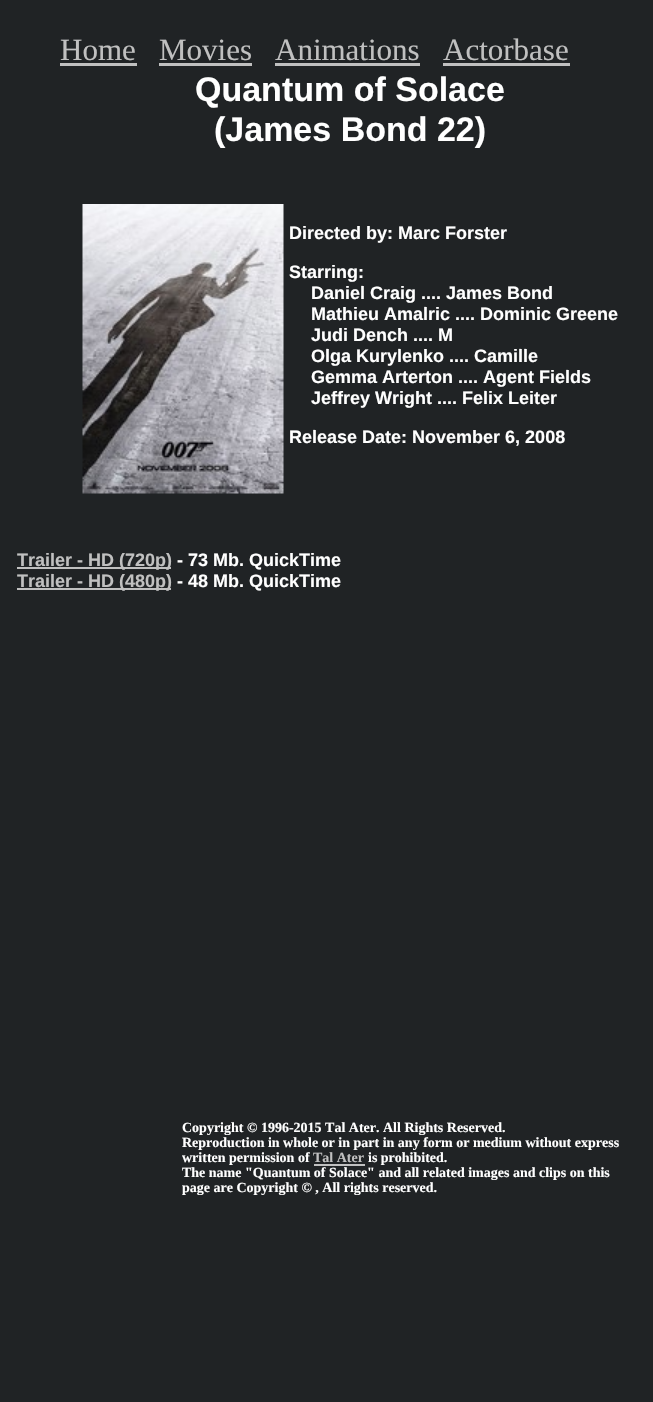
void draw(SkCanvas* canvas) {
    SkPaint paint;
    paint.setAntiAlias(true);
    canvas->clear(0xFF202325);
    SkFont font1(fontMgr->matchFamilyStyle("Liberation Serif", SkFontStyle::Normal()), 31);
    font1.setSubpixel(true);
    paint.setColor(0xFFC0C0C0);
    canvas->drawString("Home", 60, 60, font1, paint);
    canvas->drawRect(SkRect::MakeXYWH(60, 63, 77, 3), paint);
    canvas->drawString("Movies", 159, 60, font1, paint);
    canvas->drawRect(SkRect::MakeXYWH(159, 63, 93, 3), paint);
    canvas->drawString("Animations", 275, 60, font1, paint);
    canvas->drawRect(SkRect::MakeXYWH(275, 63, 145, 3), paint);
    canvas->drawString("Actorbase", 443, 60, font1, paint);
    canvas->drawRect(SkRect::MakeXYWH(443, 63, 127, 3), paint);
    SkFont font2(fontMgr->matchFamilyStyle("Liberation Sans", SkFontStyle::Bold()), 34);
    font2.setSubpixel(true);
    paint.setColor(0xFFFFFFFF);
    canvas->drawString("Quantum of Solace", 195, 101, font2, paint);
    canvas->drawString("(James Bond 22)", 214, 141, font2, paint);
    canvas->drawImageRect(SkImages::DeferredFromEncodedData(SkData::MakeFromFileName("img1.png")), SkRect::MakeXYWH(82, 204, 202, 290), SkSamplingOptions());
    SkFont font3(fontMgr->matchFamilyStyle("Liberation Sans", SkFontStyle::Bold()), 18);
    font3.setSubpixel(true);
    canvas->drawString("Directed by: Marc Forster", 289, 239, font3, paint);
    canvas->drawString("Starring:", 289, 278, font3, paint);
    canvas->drawString("Daniel Craig .... James Bond", 311, 299, font3, paint);
    canvas->drawString("Mathieu Amalric .... Dominic Greene", 311, 320, font3, paint);
    canvas->drawString("Judi Dench .... M", 311, 341, font3, paint);
    canvas->drawString("Olga Kurylenko .... Camille", 311, 362, font3, paint);
    canvas->drawString("Gemma Arterton .... Agent Fields", 311, 383, font3, paint);
    canvas->drawString("Jeffrey Wright .... Felix Leiter", 311, 404, font3, paint);
    canvas->drawString("Release Date: November 6, 2008", 289, 443, font3, paint);
    paint.setColor(0xFFC0C0C0);
    canvas->drawRect(SkRect::MakeXYWH(17, 567, 154, 2), paint);
    canvas->drawString("Trailer - HD (720p)", 17, 566, font3, paint);
    paint.setColor(0xFFFFFFFF);
    canvas->drawString("- 73 Mb. QuickTime", 177, 566, font3, paint);
    paint.setColor(0xFFC0C0C0);
    canvas->drawRect(SkRect::MakeXYWH(17, 588, 154, 2), paint);
    canvas->drawString("Trailer - HD (480p)", 17, 587, font3, paint);
    paint.setColor(0xFFFFFFFF);
    canvas->drawString("- 48 Mb. QuickTime", 177, 587, font3, paint);
    SkFont font4(fontMgr->matchFamilyStyle("Liberation Serif", SkFontStyle::Bold()), 14);
    font4.setSubpixel(true);
    canvas->drawString("Copyright © 1996-2015 Tal Ater. All Rights Reserved.", 182, 1132, font4, paint);
    canvas->drawString("Reproduction in whole or in part in any form or medium without express", 182, 1147, font4, paint);
    canvas->drawString("written permission of", 182, 1162, font4, paint);
    paint.setColor(0xFFC0C0C0);
    canvas->drawString("Tal Ater", 313, 1162, font4, paint);
    canvas->drawRect(SkRect::MakeXYWH(314, 1164, 51, 2), paint);
    paint.setColor(0xFFFFFFFF);
    canvas->drawString("is prohibited.", 368, 1162, font4, paint);
    canvas->drawString("The name \"Quantum of Solace\" and all related images and clips on this", 182, 1177, font4, paint);
    canvas->drawString("page are Copyright © , All rights reserved.", 182, 1192, font4, paint);
}
